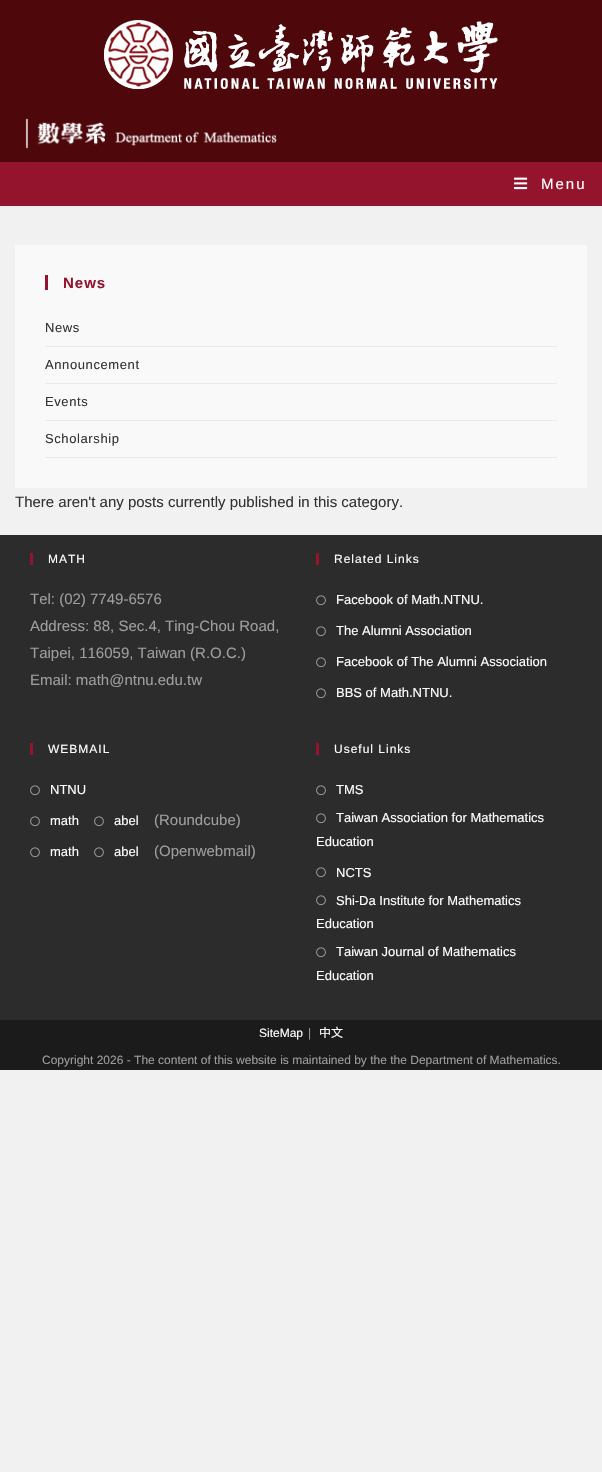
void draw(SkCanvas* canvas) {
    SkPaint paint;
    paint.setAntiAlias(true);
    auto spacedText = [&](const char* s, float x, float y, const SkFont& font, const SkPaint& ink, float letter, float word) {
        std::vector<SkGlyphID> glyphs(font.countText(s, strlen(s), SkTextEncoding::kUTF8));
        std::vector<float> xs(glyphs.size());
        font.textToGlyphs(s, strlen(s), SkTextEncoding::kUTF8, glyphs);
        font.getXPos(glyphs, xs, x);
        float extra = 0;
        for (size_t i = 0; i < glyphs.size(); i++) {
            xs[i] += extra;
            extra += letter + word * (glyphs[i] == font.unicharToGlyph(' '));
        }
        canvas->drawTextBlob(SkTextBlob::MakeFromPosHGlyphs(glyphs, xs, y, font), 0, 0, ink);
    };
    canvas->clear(0xFFF1F1F1);
    paint.setColor(0xFF4E070B);
    canvas->drawRect(SkRect::MakeXYWH(0, 0, 602, 162), paint);
    canvas->drawImageRect(SkImages::DeferredFromEncodedData(SkData::MakeFromFileName("img1.png")), SkRect::MakeXYWH(104, 20, 394, 69), SkSamplingOptions());
    canvas->drawImageRect(SkImages::DeferredFromEncodedData(SkData::MakeFromFileName("img2.png")), SkRect::MakeXYWH(25, 118, 252, 31), SkSamplingOptions());
    paint.setColor(0xFF94142D);
    canvas->drawRect(SkRect::MakeXYWH(0, 162, 602, 44), paint);
    canvas->drawImageRect(SkImages::DeferredFromEncodedData(SkData::MakeFromFileName("img3.png")), SkRect::MakeXYWH(514, 177, 14, 13), SkSamplingOptions());
    SkFont font1(fontMgr->matchFamilyStyle("Liberation Sans", SkFontStyle::Normal()), 15);
    font1.setSubpixel(true);
    paint.setColor(0xFFFFFFFF);
    spacedText("Menu", 541, 189, font1, paint, 2, 0);
    paint.setColor(0xFFF9F9F9);
    canvas->drawRect(SkRect::MakeXYWH(15, 245, 572, 243), paint);
    paint.setColor(0xFF94142D);
    canvas->drawRect(SkRect::MakeXYWH(45, 275, 3, 15), paint);
    SkFont font2(fontMgr->matchFamilyStyle("Liberation Sans", SkFontStyle::Bold()), 15);
    font2.setSubpixel(true);
    spacedText("News", 63, 288, font2, paint, 1, 0);
    paint.setColor(0xFFE9E9E9);
    canvas->drawRect(SkRect::MakeXYWH(45, 346, 512, 1), paint);
    SkFont font3(fontMgr->matchFamilyStyle("Liberation Sans", SkFontStyle::Normal()), 13);
    font3.setSubpixel(true);
    paint.setColor(0xFF333333);
    spacedText("News", 45, 332, font3, paint, 0.6f, 0);
    paint.setColor(0xFFE9E9E9);
    canvas->drawRect(SkRect::MakeXYWH(45, 383, 512, 1), paint);
    paint.setColor(0xFF333333);
    spacedText("Announcement", 45, 369, font3, paint, 0.6f, 0);
    paint.setColor(0xFFE9E9E9);
    canvas->drawRect(SkRect::MakeXYWH(45, 420, 512, 1), paint);
    paint.setColor(0xFF333333);
    spacedText("Events", 45, 406, font3, paint, 0.6f, 0);
    paint.setColor(0xFFE9E9E9);
    canvas->drawRect(SkRect::MakeXYWH(45, 457, 512, 1), paint);
    paint.setColor(0xFF333333);
    spacedText("Scholarship", 45, 443, font3, paint, 0.6f, 0);
    canvas->drawString("There aren't any posts currently published in this category.", 15, 507, font1, paint);
    paint.setColor(0xFF2C2C2C);
    canvas->drawRect(SkRect::MakeXYWH(0, 535, 602, 485), paint);
    paint.setColor(0xFF94142D);
    canvas->drawRect(SkRect::MakeXYWH(30, 553, 3, 12), paint);
    SkFont font4(fontMgr->matchFamilyStyle("Liberation Sans", SkFontStyle::Normal()), 12);
    font4.setSubpixel(true);
    paint.setColor(0xFFFFFFFF);
    spacedText("MATH", 48, 563, font4, paint, 1, 0);
    paint.setColor(0xFF9E9E9E);
    canvas->drawString("Tel: (02) 7749-6576", 30, 604, font1, paint);
    canvas->drawString("Address: 88, Sec.4, Ting-Chou Road,", 30, 631, font1, paint);
    canvas->drawString("Taipei, 116059, Taiwan (R.O.C.)", 30, 658, font1, paint);
    canvas->drawString("Email: math@ntnu.edu.tw", 30, 685, font1, paint);
    paint.setColor(0xFF94142D);
    canvas->drawRect(SkRect::MakeXYWH(316, 553, 3, 12), paint);
    paint.setColor(0xFFFFFFFF);
    spacedText("Related Links", 334, 563, font4, paint, 1, 0);
    canvas->drawImageRect(SkImages::DeferredFromEncodedData(SkData::MakeFromFileName("img4.png")), SkRect::MakeXYWH(316, 595, 10, 11), SkSamplingOptions());
    canvas->drawString("Facebook of Math.NTNU.", 336, 604, font3, paint);
    canvas->drawImageRect(SkImages::DeferredFromEncodedData(SkData::MakeFromFileName("img4.png")), SkRect::MakeXYWH(316, 626, 10, 11), SkSamplingOptions());
    canvas->drawString("The Alumni Association", 336, 635, font3, paint);
    canvas->drawImageRect(SkImages::DeferredFromEncodedData(SkData::MakeFromFileName("img4.png")), SkRect::MakeXYWH(316, 657, 10, 11), SkSamplingOptions());
    canvas->drawString("Facebook of The Alumni Association", 336, 666, font3, paint);
    canvas->drawImageRect(SkImages::DeferredFromEncodedData(SkData::MakeFromFileName("img4.png")), SkRect::MakeXYWH(316, 688, 10, 11), SkSamplingOptions());
    canvas->drawString("BBS of Math.NTNU.", 336, 697, font3, paint);
    paint.setColor(0xFF94142D);
    canvas->drawRect(SkRect::MakeXYWH(30, 743, 3, 12), paint);
    paint.setColor(0xFFFFFFFF);
    spacedText("WEBMAIL", 48, 753, font4, paint, 1, 0);
    canvas->drawImageRect(SkImages::DeferredFromEncodedData(SkData::MakeFromFileName("img4.png")), SkRect::MakeXYWH(30, 785, 10, 11), SkSamplingOptions());
    canvas->drawString("NTNU", 50, 794, font3, paint);
    canvas->drawImageRect(SkImages::DeferredFromEncodedData(SkData::MakeFromFileName("img4.png")), SkRect::MakeXYWH(30, 816, 10, 11), SkSamplingOptions());
    canvas->drawString("math", 50, 825, font3, paint);
    canvas->drawImageRect(SkImages::DeferredFromEncodedData(SkData::MakeFromFileName("img4.png")), SkRect::MakeXYWH(94, 816, 10, 11), SkSamplingOptions());
    canvas->drawString("abel", 114, 825, font3, paint);
    paint.setColor(0xFF9E9E9E);
    canvas->drawString("(Roundcube)", 154, 825, font1, paint);
    canvas->drawImageRect(SkImages::DeferredFromEncodedData(SkData::MakeFromFileName("img4.png")), SkRect::MakeXYWH(30, 847, 10, 11), SkSamplingOptions());
    paint.setColor(0xFFFFFFFF);
    canvas->drawString("math", 50, 856, font3, paint);
    canvas->drawImageRect(SkImages::DeferredFromEncodedData(SkData::MakeFromFileName("img4.png")), SkRect::MakeXYWH(94, 847, 10, 11), SkSamplingOptions());
    canvas->drawString("abel", 114, 856, font3, paint);
    paint.setColor(0xFF9E9E9E);
    canvas->drawString("(Openwebmail)", 154, 856, font1, paint);
    paint.setColor(0xFF94142D);
    canvas->drawRect(SkRect::MakeXYWH(316, 743, 3, 12), paint);
    paint.setColor(0xFFFFFFFF);
    spacedText("Useful Links", 334, 753, font4, paint, 1, 0);
    canvas->drawImageRect(SkImages::DeferredFromEncodedData(SkData::MakeFromFileName("img4.png")), SkRect::MakeXYWH(316, 785, 10, 11), SkSamplingOptions());
    canvas->drawString("TMS", 336, 794, font3, paint);
    canvas->drawImageRect(SkImages::DeferredFromEncodedData(SkData::MakeFromFileName("img4.png")), SkRect::MakeXYWH(316, 813, 10, 11), SkSamplingOptions());
    canvas->drawString("Taiwan Association for Mathematics", 336, 822, font3, paint);
    canvas->drawString("Education", 316, 846, font3, paint);
    canvas->drawImageRect(SkImages::DeferredFromEncodedData(SkData::MakeFromFileName("img4.png")), SkRect::MakeXYWH(316, 867, 10, 11), SkSamplingOptions());
    canvas->drawString("NCTS", 336, 877, font3, paint);
    canvas->drawImageRect(SkImages::DeferredFromEncodedData(SkData::MakeFromFileName("img4.png")), SkRect::MakeXYWH(316, 895, 10, 11), SkSamplingOptions());
    canvas->drawString("Shi-Da Institute for Mathematics", 336, 905, font3, paint);
    canvas->drawString("Education", 316, 928, font3, paint);
    canvas->drawImageRect(SkImages::DeferredFromEncodedData(SkData::MakeFromFileName("img4.png")), SkRect::MakeXYWH(316, 947, 10, 11), SkSamplingOptions());
    canvas->drawString("Taiwan Journal of Mathematics", 336, 956, font3, paint);
    canvas->drawString("Education", 316, 980, font3, paint);
    paint.setColor(0xFF1B1B1B);
    canvas->drawRect(SkRect::MakeXYWH(0, 1020, 602, 50), paint);
    paint.setColor(0xFFFFFFFF);
    canvas->drawString("SiteMap", 259, 1037, font4, paint);
    paint.setColor(0xFF9E9E9E);
    canvas->drawString("|", 308, 1037, font4, paint);
    SkFont font5(fontMgr->matchFamilyStyle("Noto Sans CJK TC", SkFontStyle::Normal()), 12);
    font5.setSubpixel(true);
    paint.setColor(0xFFFFFFFF);
    canvas->drawString("中文", 319, 1037, font5, paint);
    paint.setColor(0xFF9E9E9E);
    canvas->drawString("Copyright 2026 - The content of this website is maintained by the the Department of Mathematics.", 42, 1064, font4, paint);
}
